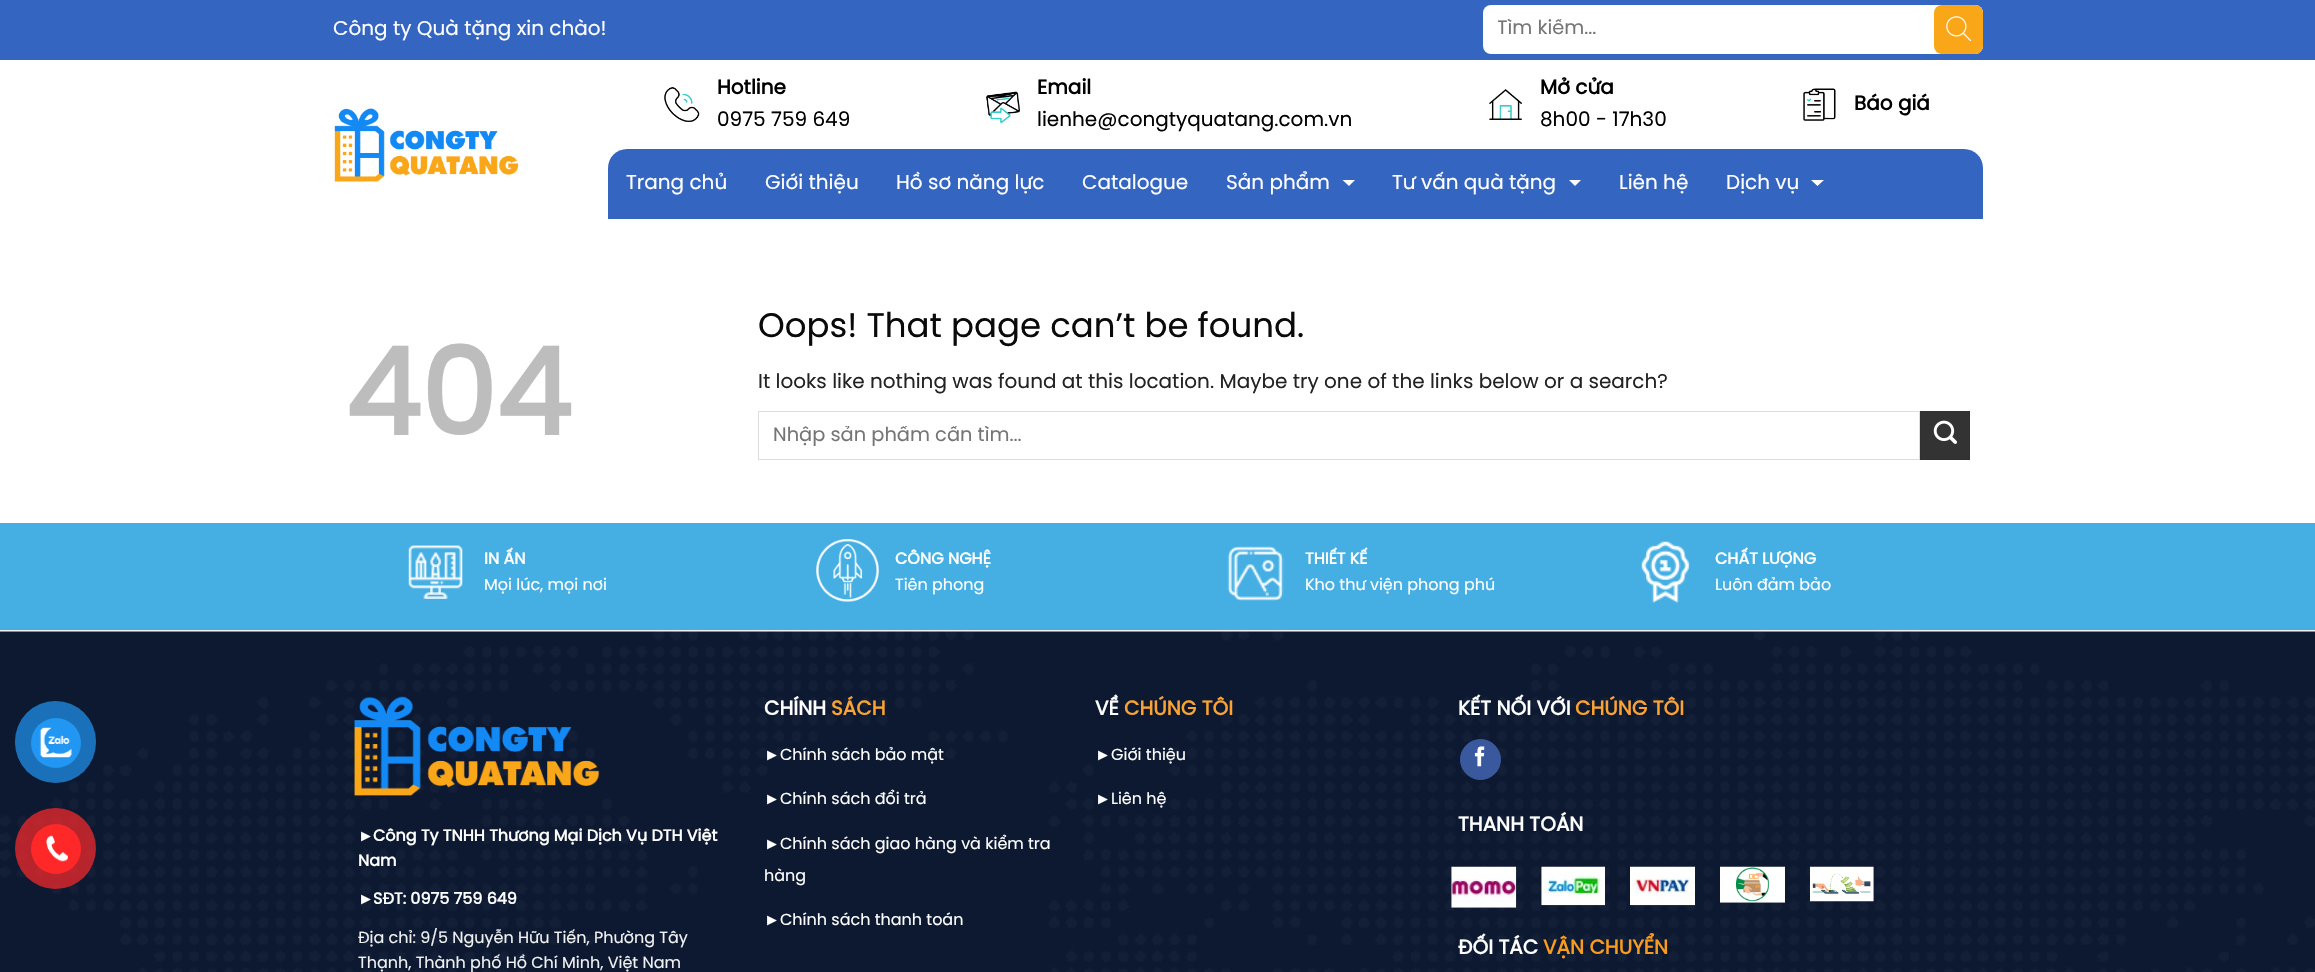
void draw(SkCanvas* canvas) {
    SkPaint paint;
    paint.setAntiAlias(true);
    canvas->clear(0xFFFFFFFF);
    canvas->drawImageRect(SkImages::DeferredFromEncodedData(SkData::MakeFromFileName("img14.png")), SkRect::MakeXYWH(0, 631, 2315, 341), SkSamplingOptions());
    paint.setColor(0xFF1B71B9);
    canvas->drawRoundRect(SkRect::MakeXYWH(15, 701, 81, 82), 40.5f, 40.5f, paint);
    paint.setColor(0xFF2196F3);
    canvas->drawCircle(56, 743, 25, paint);
    canvas->drawImageRect(SkImages::DeferredFromEncodedData(SkData::MakeFromFileName("img1.png")), SkRect::MakeXYWH(39, 727, 33, 31), SkSamplingOptions());
    paint.setColor(0xB3FF2828);
    canvas->drawCircle(55.5f, 848.5f, 40.5f, paint);
    paint.setColor(0xFFFF2828);
    canvas->drawCircle(56, 849, 25, paint);
    canvas->drawImageRect(SkImages::DeferredFromEncodedData(SkData::MakeFromFileName("img2.png")), SkRect::MakeXYWH(46, 835, 22, 27), SkSamplingOptions());
    paint.setColor(0xFF3365C1);
    canvas->drawRect(SkRect::MakeXYWH(0, 0, 2315, 60), paint);
    SkFont font1(fontMgr->matchFamilyStyle("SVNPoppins", SkFontStyle::Normal()), 20);
    font1.setSubpixel(true);
    paint.setColor(0xFFFFFFFF);
    canvas->drawString("Công ty Quà tặng xin chào!", 333, 35, font1, paint);
    canvas->drawRoundRect(SkRect::MakeXYWH(1483, 5, 500, 49), 8, 8, paint);
    canvas->save();
    canvas->clipRect(SkRect::MakeXYWH(1498, 19, 465, 20));
    SkFont font2(fontMgr->matchFamilyStyle("SVNPoppins", SkFontStyle::Normal()), 19.4f);
    font2.setSubpixel(true);
    paint.setColor(0xFF757575);
    canvas->drawString("Tìm kiếm...", 1497, 34, font2, paint);
    canvas->restore();
    paint.setColor(0xFFF9A619);
    canvas->drawRoundRect(SkRect::MakeXYWH(1934, 5, 49, 49), 8, 8, paint);
    canvas->drawImageRect(SkImages::DeferredFromEncodedData(SkData::MakeFromFileName("img3.png")), SkRect::MakeXYWH(1946, 16, 25, 25), SkSamplingOptions());
    canvas->drawImageRect(SkImages::DeferredFromEncodedData(SkData::MakeFromFileName("img4.png")), SkRect::MakeXYWH(334, 108, 185, 74), SkSamplingOptions());
    canvas->drawImageRect(SkImages::DeferredFromEncodedData(SkData::MakeFromFileName("img5.png")), SkRect::MakeXYWH(664, 87, 36, 35), SkSamplingOptions());
    SkFont font3(fontMgr->matchFamilyStyle("SVNPoppins", SkFontStyle::Bold()), 20);
    font3.setSubpixel(true);
    paint.setColor(0xFF000000);
    canvas->drawString("Hotline", 717, 94, font3, paint);
    canvas->drawString("0975 759 649", 717, 126, font1, paint);
    canvas->drawImageRect(SkImages::DeferredFromEncodedData(SkData::MakeFromFileName("img6.png")), SkRect::MakeXYWH(986, 91, 34, 32), SkSamplingOptions());
    canvas->drawString("Email", 1037, 94, font3, paint);
    canvas->drawString("lienhe@congtyquatang.com.vn", 1037, 126, font1, paint);
    canvas->drawImageRect(SkImages::DeferredFromEncodedData(SkData::MakeFromFileName("img7.png")), SkRect::MakeXYWH(1489, 89, 33, 31), SkSamplingOptions());
    canvas->drawString("Mở cửa", 1540, 94, font3, paint);
    canvas->drawString("8h00 - 17h30", 1540, 126, font1, paint);
    canvas->drawImageRect(SkImages::DeferredFromEncodedData(SkData::MakeFromFileName("img8.png")), SkRect::MakeXYWH(1803, 88, 33, 33), SkSamplingOptions());
    canvas->drawString("Báo giá", 1854, 110, font3, paint);
    paint.setColor(0xFF3365C1);
    canvas->drawPath(SkPathBuilder().moveTo(627, 149).lineTo(1964, 149).cubicTo(1974.5f, 149, 1983, 157.5f, 1983, 168).lineTo(1983, 219).lineTo(608, 219).lineTo(608, 168).cubicTo(608, 157.5f, 616.5f, 149, 627, 149).close().detach(), paint);
    paint.setColor(0xFFFFFFFF);
    canvas->drawString("Trang chủ", 626, 189, font1, paint);
    canvas->drawString("Giới thiệu", 765, 189, font1, paint);
    canvas->drawString("Hồ sơ năng lực", 896, 189, font1, paint);
    canvas->drawString("Catalogue", 1082, 189, font1, paint);
    canvas->drawString("Sản phẩm", 1226, 189, font1, paint);
    canvas->drawPath(SkPathBuilder().moveTo(1342.5f, 180).lineTo(1355, 180).lineTo(1349, 186).close().detach(), paint);
    canvas->drawString("Tư vấn quà tặng", 1392, 189, font1, paint);
    canvas->drawPath(SkPathBuilder().moveTo(1569, 180).lineTo(1581, 180).lineTo(1575, 186).close().detach(), paint);
    canvas->drawString("Liên hệ", 1619, 189, font1, paint);
    canvas->drawString("Dịch vụ", 1726, 189, font1, paint);
    canvas->drawPath(SkPathBuilder().moveTo(1811, 180).lineTo(1824, 180).lineTo(1817.5f, 186).close().detach(), paint);
    SkFont font4(fontMgr->matchFamilyStyle("SVNPoppins", SkFontStyle::Bold()), 120);
    font4.setSubpixel(true);
    paint.setColor(0xFFBDBDBD);
    canvas->drawString("404", 345, 435, font4, paint);
    SkFont font5(fontMgr->matchFamilyStyle("SVNPoppins", SkFontStyle::Normal()), 34);
    font5.setSubpixel(true);
    paint.setColor(0xFF0A0A0A);
    canvas->drawString("Oops! That page can’t be found.", 758, 337, font5, paint);
    paint.setColor(0xFF232323);
    canvas->drawString("It looks like nothing was found at this location. Maybe try one of the links below or a search?", 758, 388, font1, paint);
    paint.setStyle(SkPaint::kStroke_Style);
    paint.setStrokeWidth(1);
    paint.setColor(0xFFDDDDDD);
    canvas->drawRect(SkRect::MakeXYWH(758.5f, 411.5f, 1161, 48), paint);
    canvas->save();
    canvas->clipRect(SkRect::MakeXYWH(774, 426, 1126, 20));
    paint.setStyle(SkPaint::kFill_Style);
    paint.setColor(0xFF757575);
    canvas->drawString("Nhập sản phẩm cần tìm...", 773, 441, font2, paint);
    canvas->restore();
    paint.setColor(0xFF333333);
    canvas->drawRect(SkRect::MakeXYWH(1920.5f, 411.5f, 49, 48), paint);
    paint.setStyle(SkPaint::kStroke_Style);
    paint.setColor(0xFF303030);
    canvas->drawRect(SkRect::MakeXYWH(1920.5f, 411.5f, 49, 48), paint);
    canvas->drawImageRect(SkImages::DeferredFromEncodedData(SkData::MakeFromFileName("img9.png")), SkRect::MakeXYWH(1933, 420, 24, 24), SkSamplingOptions());
    paint.setStyle(SkPaint::kFill_Style);
    paint.setColor(0xFF45AFE3);
    canvas->drawRect(SkRect::MakeXYWH(0, 523, 2315, 107), paint);
    canvas->drawImageRect(SkImages::DeferredFromEncodedData(SkData::MakeFromFileName("img10.png")), SkRect::MakeXYWH(408, 545, 55, 54), SkSamplingOptions());
    SkFont font6(fontMgr->matchFamilyStyle("SVNPoppins", SkFontStyle::Bold()), 16);
    font6.setSubpixel(true);
    paint.setColor(0xFFFFFFFF);
    canvas->drawString("IN ẤN", 484, 564, font6, paint);
    SkFont font7(fontMgr->matchFamilyStyle("SVNPoppins", SkFontStyle::Normal()), 16);
    font7.setSubpixel(true);
    canvas->drawString("Mọi lúc, mọi nơi", 484, 590, font7, paint);
    canvas->drawImageRect(SkImages::DeferredFromEncodedData(SkData::MakeFromFileName("img11.png")), SkRect::MakeXYWH(816, 539, 63, 63), SkSamplingOptions());
    canvas->drawString("CÔNG NGHỆ", 895, 564, font6, paint);
    canvas->drawString("Tiên phong", 895, 590, font7, paint);
    canvas->drawImageRect(SkImages::DeferredFromEncodedData(SkData::MakeFromFileName("img12.png")), SkRect::MakeXYWH(1227, 546, 57, 55), SkSamplingOptions());
    canvas->drawString("THIẾT KẾ", 1305, 564, font6, paint);
    canvas->drawString("Kho thư viện phong phú", 1305, 590, font7, paint);
    canvas->drawImageRect(SkImages::DeferredFromEncodedData(SkData::MakeFromFileName("img13.png")), SkRect::MakeXYWH(1641, 541, 49, 62), SkSamplingOptions());
    canvas->drawString("CHẤT LƯỢNG", 1715, 564, font6, paint);
    canvas->drawString("Luôn đảm bảo", 1715, 590, font7, paint);
    paint.setColor(0xFFEEEEEE);
    canvas->drawRect(SkRect::MakeXYWH(0, 630, 2315, 1), paint);
    canvas->drawImageRect(SkImages::DeferredFromEncodedData(SkData::MakeFromFileName("img15.png")), SkRect::MakeXYWH(354, 696, 246, 100), SkSamplingOptions());
    SkFont font8(fontMgr->matchFamilyStyle("Liberation Sans", SkFontStyle::Normal()), 16);
    font8.setSubpixel(true);
    paint.setColor(0xFFFFFFFF);
    canvas->drawString("►", 358, 841, font8, paint);
    canvas->drawString("Công Ty TNHH Thương Mại Dịch Vụ DTH Việt", 373, 841, font6, paint);
    canvas->drawString("Nam", 358, 866, font6, paint);
    canvas->drawString("►", 358, 904, font8, paint);
    canvas->drawString("SĐT: 0975 759 649", 373, 904, font6, paint);
    paint.setColor(0xFFF1F1F1);
    canvas->drawString("Địa chỉ: 9/5 Nguyễn Hữu Tiến, Phường Tây", 358, 943, font7, paint);
    canvas->drawString("Thạnh, Thành phố Hồ Chí Minh, Việt Nam", 358, 968, font7, paint);
    paint.setColor(0xFFFFFFFF);
    canvas->drawString("CHÍNH", 764, 715, font3, paint);
    paint.setColor(0xFFFAA332);
    canvas->drawString("SÁCH", 831, 715, font3, paint);
    paint.setColor(0xFFFFFFFF);
    canvas->drawString("►", 764, 760, font8, paint);
    canvas->drawString("Chính sách bảo mật", 780, 760, font7, paint);
    canvas->drawString("►", 764, 804, font8, paint);
    canvas->drawString("Chính sách đổi trả", 780, 804, font7, paint);
    canvas->drawString("►", 764, 849, font8, paint);
    canvas->drawString("Chính sách giao hàng và kiểm tra", 780, 849, font7, paint);
    canvas->drawString("hàng", 764, 881, font7, paint);
    canvas->drawString("►", 764, 925, font8, paint);
    canvas->drawString("Chính sách thanh toán", 780, 925, font7, paint);
    canvas->drawString("VỀ", 1095, 715, font3, paint);
    paint.setColor(0xFFFAA332);
    canvas->drawString("CHÚNG TÔI", 1124, 715, font3, paint);
    paint.setColor(0xFFFFFFFF);
    canvas->drawString("►", 1095, 760, font8, paint);
    canvas->drawString("Giới thiệu", 1111, 760, font7, paint);
    canvas->drawString("►", 1095, 804, font8, paint);
    canvas->drawString("Liên hệ", 1111, 804, font7, paint);
    canvas->drawString("KẾT NỐI VỚI", 1458, 715, font3, paint);
    paint.setColor(0xFFFAA332);
    canvas->drawString("CHÚNG TÔI", 1575, 715, font3, paint);
    paint.setColor(0xFF3A589D);
    canvas->drawCircle(1480.5f, 759.5f, 20, paint);
    paint.setStyle(SkPaint::kStroke_Style);
    canvas->drawCircle(1480.5f, 759.5f, 20, paint);
    canvas->drawImageRect(SkImages::DeferredFromEncodedData(SkData::MakeFromFileName("img16.png")), SkRect::MakeXYWH(1474, 746, 11, 21), SkSamplingOptions());
    paint.setStyle(SkPaint::kFill_Style);
    paint.setColor(0xFFFFFFFF);
    canvas->drawString("THANH TOÁN", 1458, 831, font3, paint);
    canvas->drawImageRect(SkImages::DeferredFromEncodedData(SkData::MakeFromFileName("img17.png")), SkRect::MakeXYWH(1451, 866, 66, 42), SkSamplingOptions());
    canvas->drawImageRect(SkImages::DeferredFromEncodedData(SkData::MakeFromFileName("img18.png")), SkRect::MakeXYWH(1541, 866, 64, 40), SkSamplingOptions());
    canvas->drawImageRect(SkImages::DeferredFromEncodedData(SkData::MakeFromFileName("img19.png")), SkRect::MakeXYWH(1630, 866, 65, 40), SkSamplingOptions());
    canvas->drawImageRect(SkImages::DeferredFromEncodedData(SkData::MakeFromFileName("img20.png")), SkRect::MakeXYWH(1720, 866, 65, 37), SkSamplingOptions());
    canvas->drawImageRect(SkImages::DeferredFromEncodedData(SkData::MakeFromFileName("img21.png")), SkRect::MakeXYWH(1810, 866, 64, 36), SkSamplingOptions());
    canvas->drawString("ĐỐI TÁC", 1458, 954, font3, paint);
    paint.setColor(0xFFF99B1C);
    canvas->drawString("VẬN CHUYỂN", 1543, 954, font3, paint);
}
